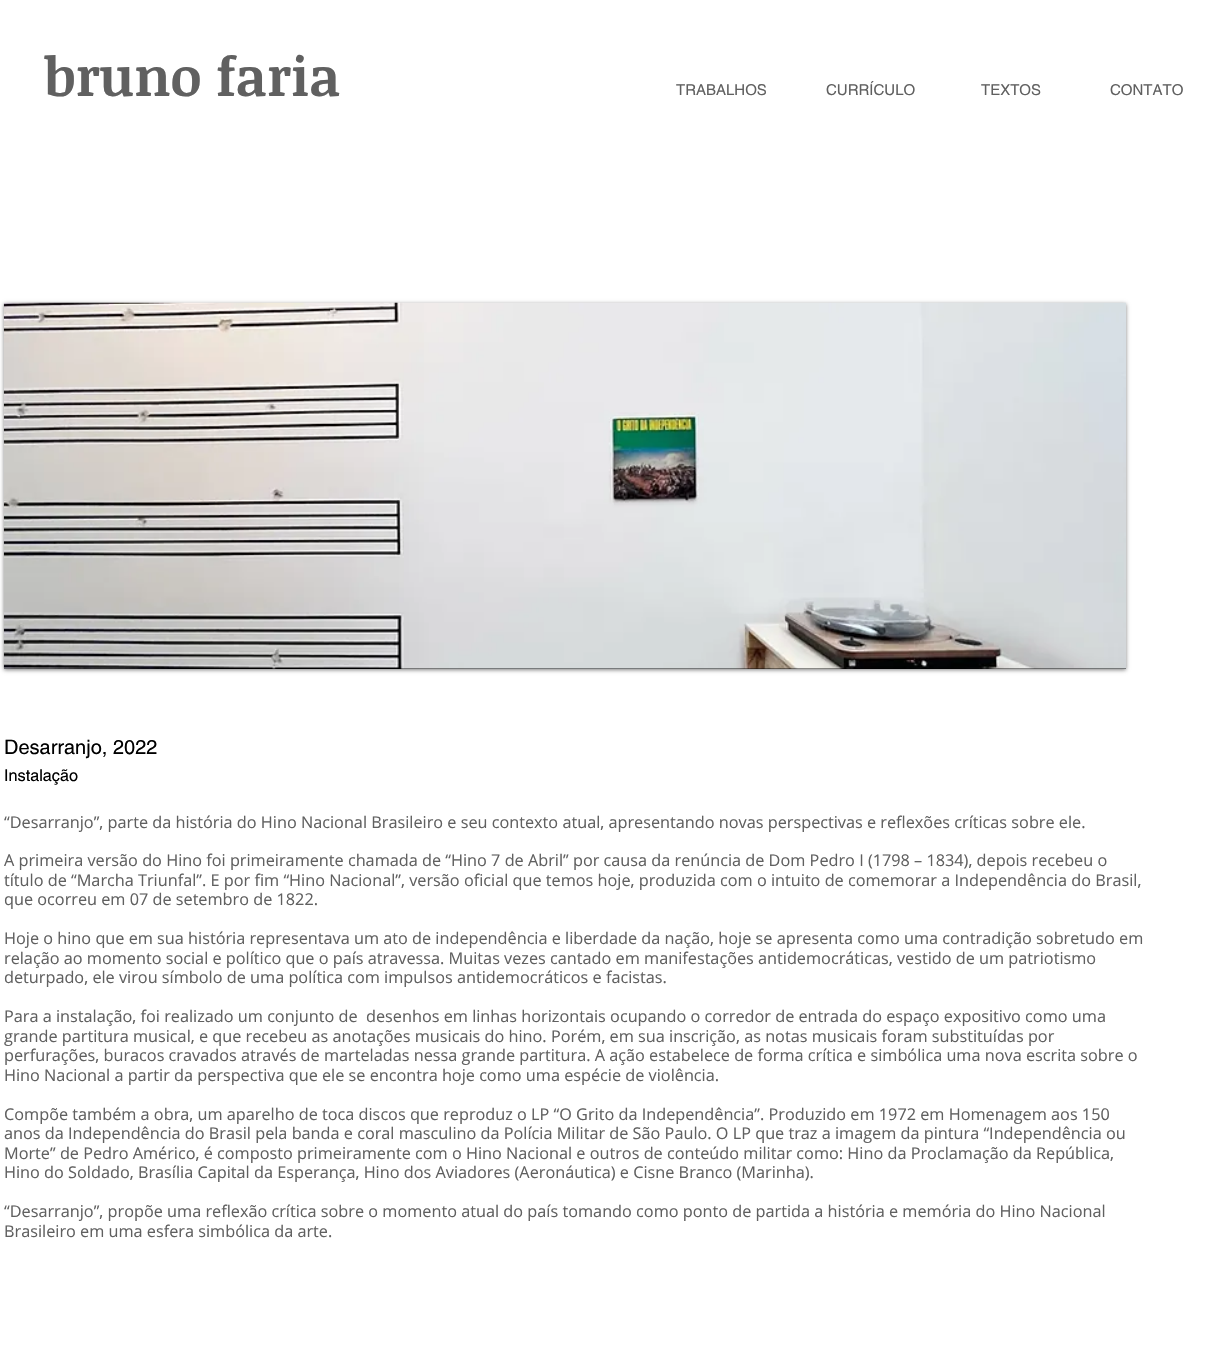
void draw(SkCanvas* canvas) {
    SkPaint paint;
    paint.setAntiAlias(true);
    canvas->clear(0xFFFFFFFF);
    SkFont font1(fontMgr->matchFamilyStyle("Noticia Text", SkFontStyle::Bold()), 53.75f);
    font1.setSubpixel(true);
    paint.setColor(0xFF606060);
    canvas->drawString("bruno faria", 44, 96, font1, paint);
    SkFont font2(fontMgr->matchFamilyStyle("helvetica", SkFontStyle::Normal()), 15);
    font2.setSubpixel(true);
    canvas->drawString("TRABALHOS", 676, 95, font2, paint);
    canvas->drawString("CURRÍCULO", 826, 95, font2, paint);
    canvas->drawString("TEXTOS", 981, 95, font2, paint);
    canvas->drawString("CONTATO", 1110, 95, font2, paint);
    paint.setColor(0x80000000);
    paint.setMaskFilter(SkMaskFilter::MakeBlur(kNormal_SkBlurStyle, 2));
    canvas->drawRect(SkRect::MakeXYWH(4, 304, 1122, 366), paint);
    paint.setMaskFilter(nullptr);
    paint.setColor(0xFF000000);
    canvas->drawRect(SkRect::MakeXYWH(4, 668, 1122, 1), paint);
    canvas->drawImageRect(SkImages::DeferredFromEncodedData(SkData::MakeFromFileName("img1.png")), SkRect::MakeXYWH(3, 302, 1123, 367), SkSamplingOptions());
    SkFont font3(fontMgr->matchFamilyStyle("helvetica", SkFontStyle::Normal()), 20);
    font3.setSubpixel(true);
    canvas->drawString("Desarranjo, 2022", 4, 754, font3, paint);
    SkFont font4(fontMgr->matchFamilyStyle("helvetica", SkFontStyle::Normal()), 16.25f);
    font4.setSubpixel(true);
    canvas->drawString("Instalação", 4, 781, font4, paint);
    SkFont font5(fontMgr->matchFamilyStyle("Open Sans", SkFontStyle::Normal()), 16.25f);
    font5.setSubpixel(true);
    paint.setColor(0xFF606060);
    canvas->drawString("“Desarranjo”, parte da história do Hino Nacional Brasileiro e seu contexto atual, apresentando novas perspectivas e reflexões críticas sobre ele.", 4, 828, font5, paint);
    canvas->drawString("A primeira versão do Hino foi primeiramente chamada de “Hino 7 de Abril” por causa da renúncia de Dom Pedro I (1798 – 1834), depois recebeu o", 4, 866, font5, paint);
    canvas->drawString("título de “Marcha Triunfal”. E por fim “Hino Nacional”, versão oficial que temos hoje, produzida com o intuito de comemorar a Independência do Brasil,", 4, 886, font5, paint);
    canvas->drawString("que ocorreu em 07 de setembro de 1822.", 4, 905, font5, paint);
    canvas->drawString("Hoje o hino que em sua história representava um ato de independência e liberdade da nação, hoje se apresenta como uma contradição sobretudo em", 4, 944, font5, paint);
    canvas->drawString("relação ao momento social e político que o país atravessa. Muitas vezes cantado em manifestações antidemocráticas, vestido de um patriotismo", 4, 964, font5, paint);
    canvas->drawString("deturpado, ele virou símbolo de uma política com impulsos antidemocráticos e facistas.", 4, 983, font5, paint);
    canvas->drawString("Para a instalação, foi realizado um conjunto de  desenhos em linhas horizontais ocupando o corredor de entrada do espaço expositivo como uma", 4, 1022, font5, paint);
    canvas->drawString("grande partitura musical, e que recebeu as anotações musicais do hino. Porém, em sua inscrição, as notas musicais foram substituídas por", 4, 1042, font5, paint);
    canvas->drawString("perfurações, buracos cravados através de marteladas nessa grande partitura. A ação estabelece de forma crítica e simbólica uma nova escrita sobre o", 4, 1061, font5, paint);
    canvas->drawString("Hino Nacional a partir da perspectiva que ele se encontra hoje como uma espécie de violência.", 4, 1081, font5, paint);
    canvas->drawString("Compõe também a obra, um aparelho de toca discos que reproduz o LP “O Grito da Independência”. Produzido em 1972 em Homenagem aos 150", 4, 1120, font5, paint);
    canvas->drawString("anos da Independência do Brasil pela banda e coral masculino da Polícia Militar de São Paulo. O LP que traz a imagem da pintura “Independência ou", 4, 1139, font5, paint);
    canvas->drawString("Morte” de Pedro Américo, é composto primeiramente com o Hino Nacional e outros de conteúdo militar como: Hino da Proclamação da República,", 4, 1159, font5, paint);
    canvas->drawString("Hino do Soldado, Brasília Capital da Esperança, Hino dos Aviadores (Aeronáutica) e Cisne Branco (Marinha).", 4, 1178, font5, paint);
    canvas->drawString("“Desarranjo”, propõe uma reflexão crítica sobre o momento atual do país tomando como ponto de partida a história e memória do Hino Nacional", 4, 1217, font5, paint);
    canvas->drawString("Brasileiro em uma esfera simbólica da arte.", 4, 1237, font5, paint);
}
